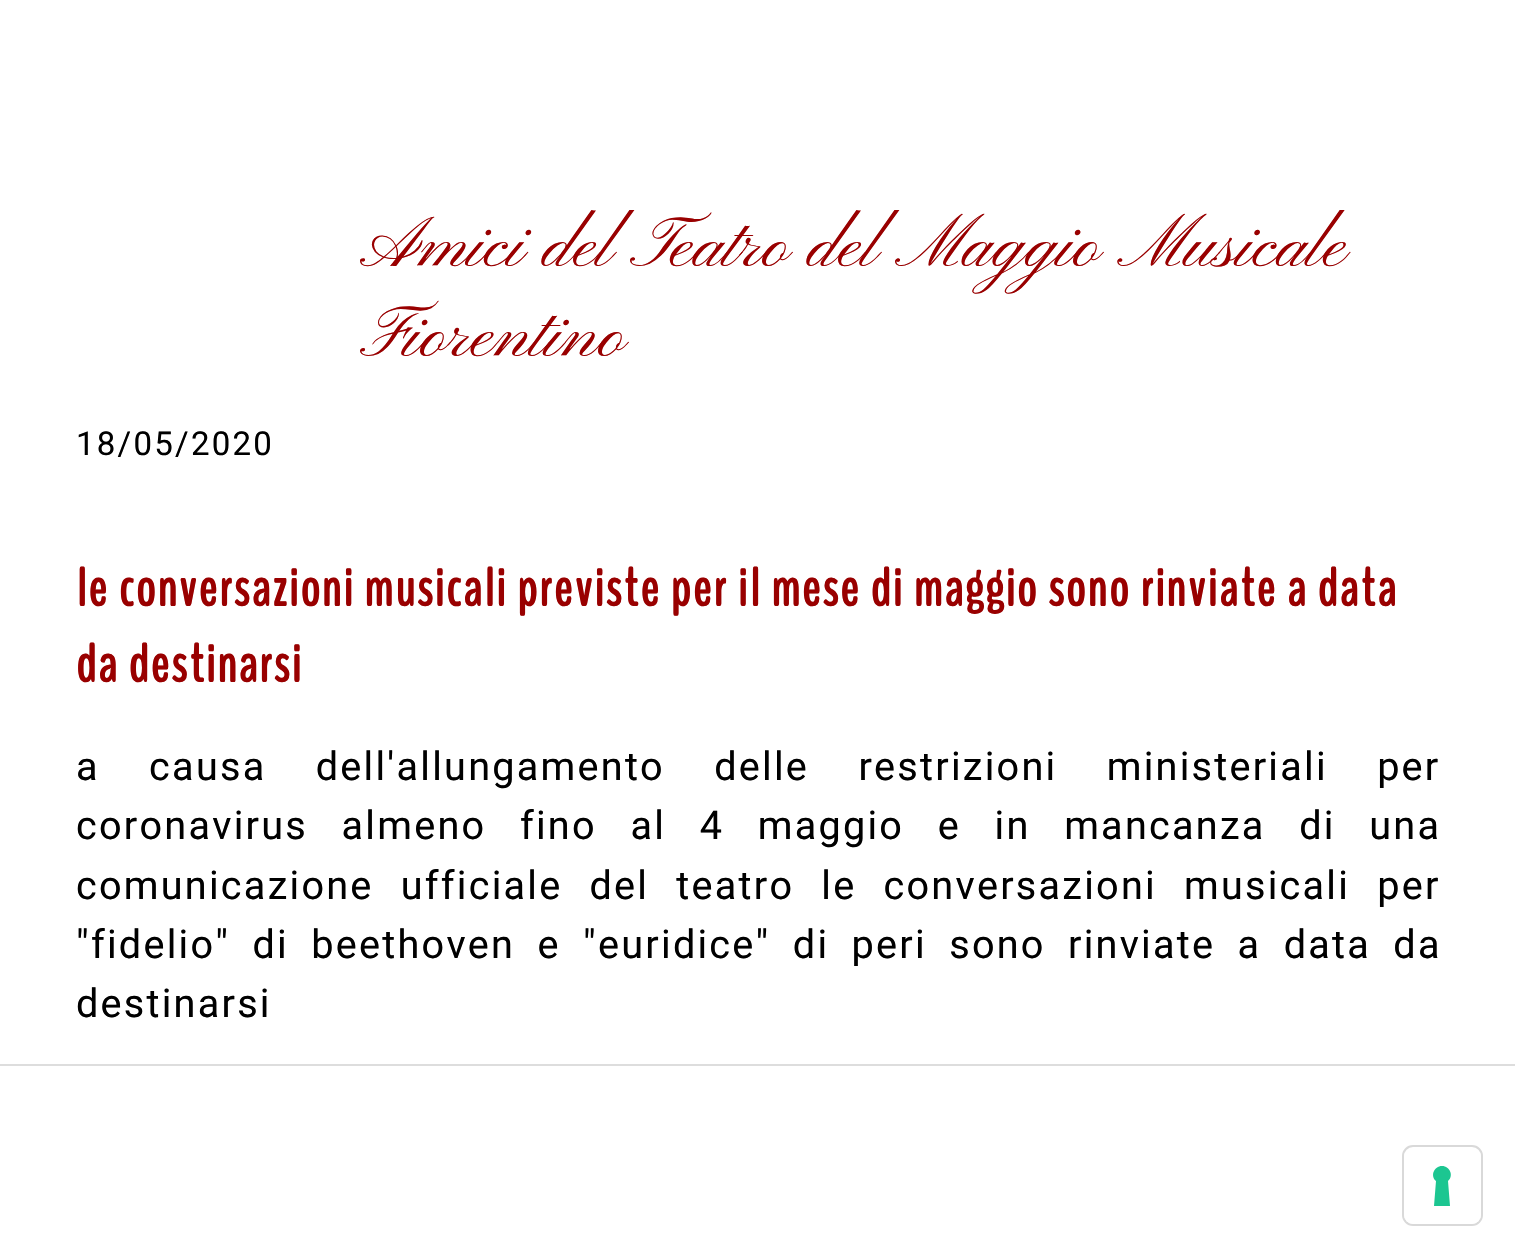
void draw(SkCanvas* canvas) {
    SkPaint paint;
    paint.setAntiAlias(true);
    auto spacedText = [&](const char* s, float x, float y, const SkFont& font, const SkPaint& ink, float letter, float word) {
        std::vector<SkGlyphID> glyphs(font.countText(s, strlen(s), SkTextEncoding::kUTF8));
        std::vector<float> xs(glyphs.size());
        font.textToGlyphs(s, strlen(s), SkTextEncoding::kUTF8, glyphs);
        font.getXPos(glyphs, xs, x);
        float extra = 0;
        for (size_t i = 0; i < glyphs.size(); i++) {
            xs[i] += extra;
            extra += letter + word * (glyphs[i] == font.unicharToGlyph(' '));
        }
        canvas->drawTextBlob(SkTextBlob::MakeFromPosHGlyphs(glyphs, xs, y, font), 0, 0, ink);
    };
    canvas->clear(0xFFFFFFFF);
    SkFont font1(fontMgr->matchFamilyStyle("Pinyon Script", SkFontStyle::Normal()), 72);
    font1.setSubpixel(true);
    paint.setColor(0xFF990000);
    canvas->drawString("Amici del Teatro del Maggio Musicale", 360, 266, font1, paint);
    canvas->drawString("Fiorentino", 360, 356, font1, paint);
    SkFont font2(fontMgr->matchFamilyStyle("Roboto", SkFontStyle::Normal()), 33);
    font2.setSubpixel(true);
    paint.setColor(0xFF000000);
    spacedText("18/05/2020", 76, 455, font2, paint, 2.25f, 0);
    SkFont font3(fontMgr->matchFamilyStyle("BenchNine", SkFontStyle::Bold()), 54);
    font3.setSubpixel(true);
    paint.setColor(0xFF990000);
    spacedText("le conversazioni musicali previste per il mese di maggio sono rinviate a data", 76, 606, font3, paint, 2.25f, 0);
    spacedText("da destinarsi", 76, 682, font3, paint, 2.25f, 0);
    SkFont font4(fontMgr->matchFamilyStyle("Roboto", SkFontStyle::Normal()), 39.6f);
    font4.setSubpixel(true);
    paint.setColor(0xFF000000);
    spacedText("a causa dell'allungamento delle restrizioni ministeriali per", 76, 780, font4, paint, 2.25f, 37.25f);
    spacedText("coronavirus almeno fino al 4 maggio e in mancanza di una", 76, 839, font4, paint, 2.25f, 21.5f);
    spacedText("comunicazione ufficiale del teatro le conversazioni musicali per", 76, 899, font4, paint, 2.25f, 15);
    spacedText("\"fidelio\" di beethoven e \"euridice\" di peri sono rinviate a data da", 76, 958, font4, paint, 2.25f, 10.25f);
    spacedText("destinarsi", 76, 1017, font4, paint, 2.25f, 0);
    paint.setColor(0xFFDDDDDD);
    canvas->drawRect(SkRect::MakeXYWH(0, 1064, 1515, 2), paint);
    paint.setStyle(SkPaint::kStroke_Style);
    paint.setStrokeWidth(2);
    paint.setColor(0xFFD9D9D9);
    canvas->drawRoundRect(SkRect::MakeXYWH(1403, 1146, 79, 79), 10, 10, paint);
    paint.setStyle(SkPaint::kFill_Style);
    paint.setColor(0xFFFFFFFF);
    canvas->drawRoundRect(SkRect::MakeXYWH(1404, 1148, 77, 76), 9, 9, paint);
    paint.setColor(0xFF1CC691);
    canvas->drawPath(SkPathBuilder(SkPathFillType::kEvenOdd).moveTo(1442, 1166).cubicTo(1450, 1166, 1454, 1176, 1448, 1181).lineTo(1450, 1206).lineTo(1434, 1206).lineTo(1436, 1181).cubicTo(1430, 1176, 1434, 1166, 1442, 1166).close().detach(), paint);
}
